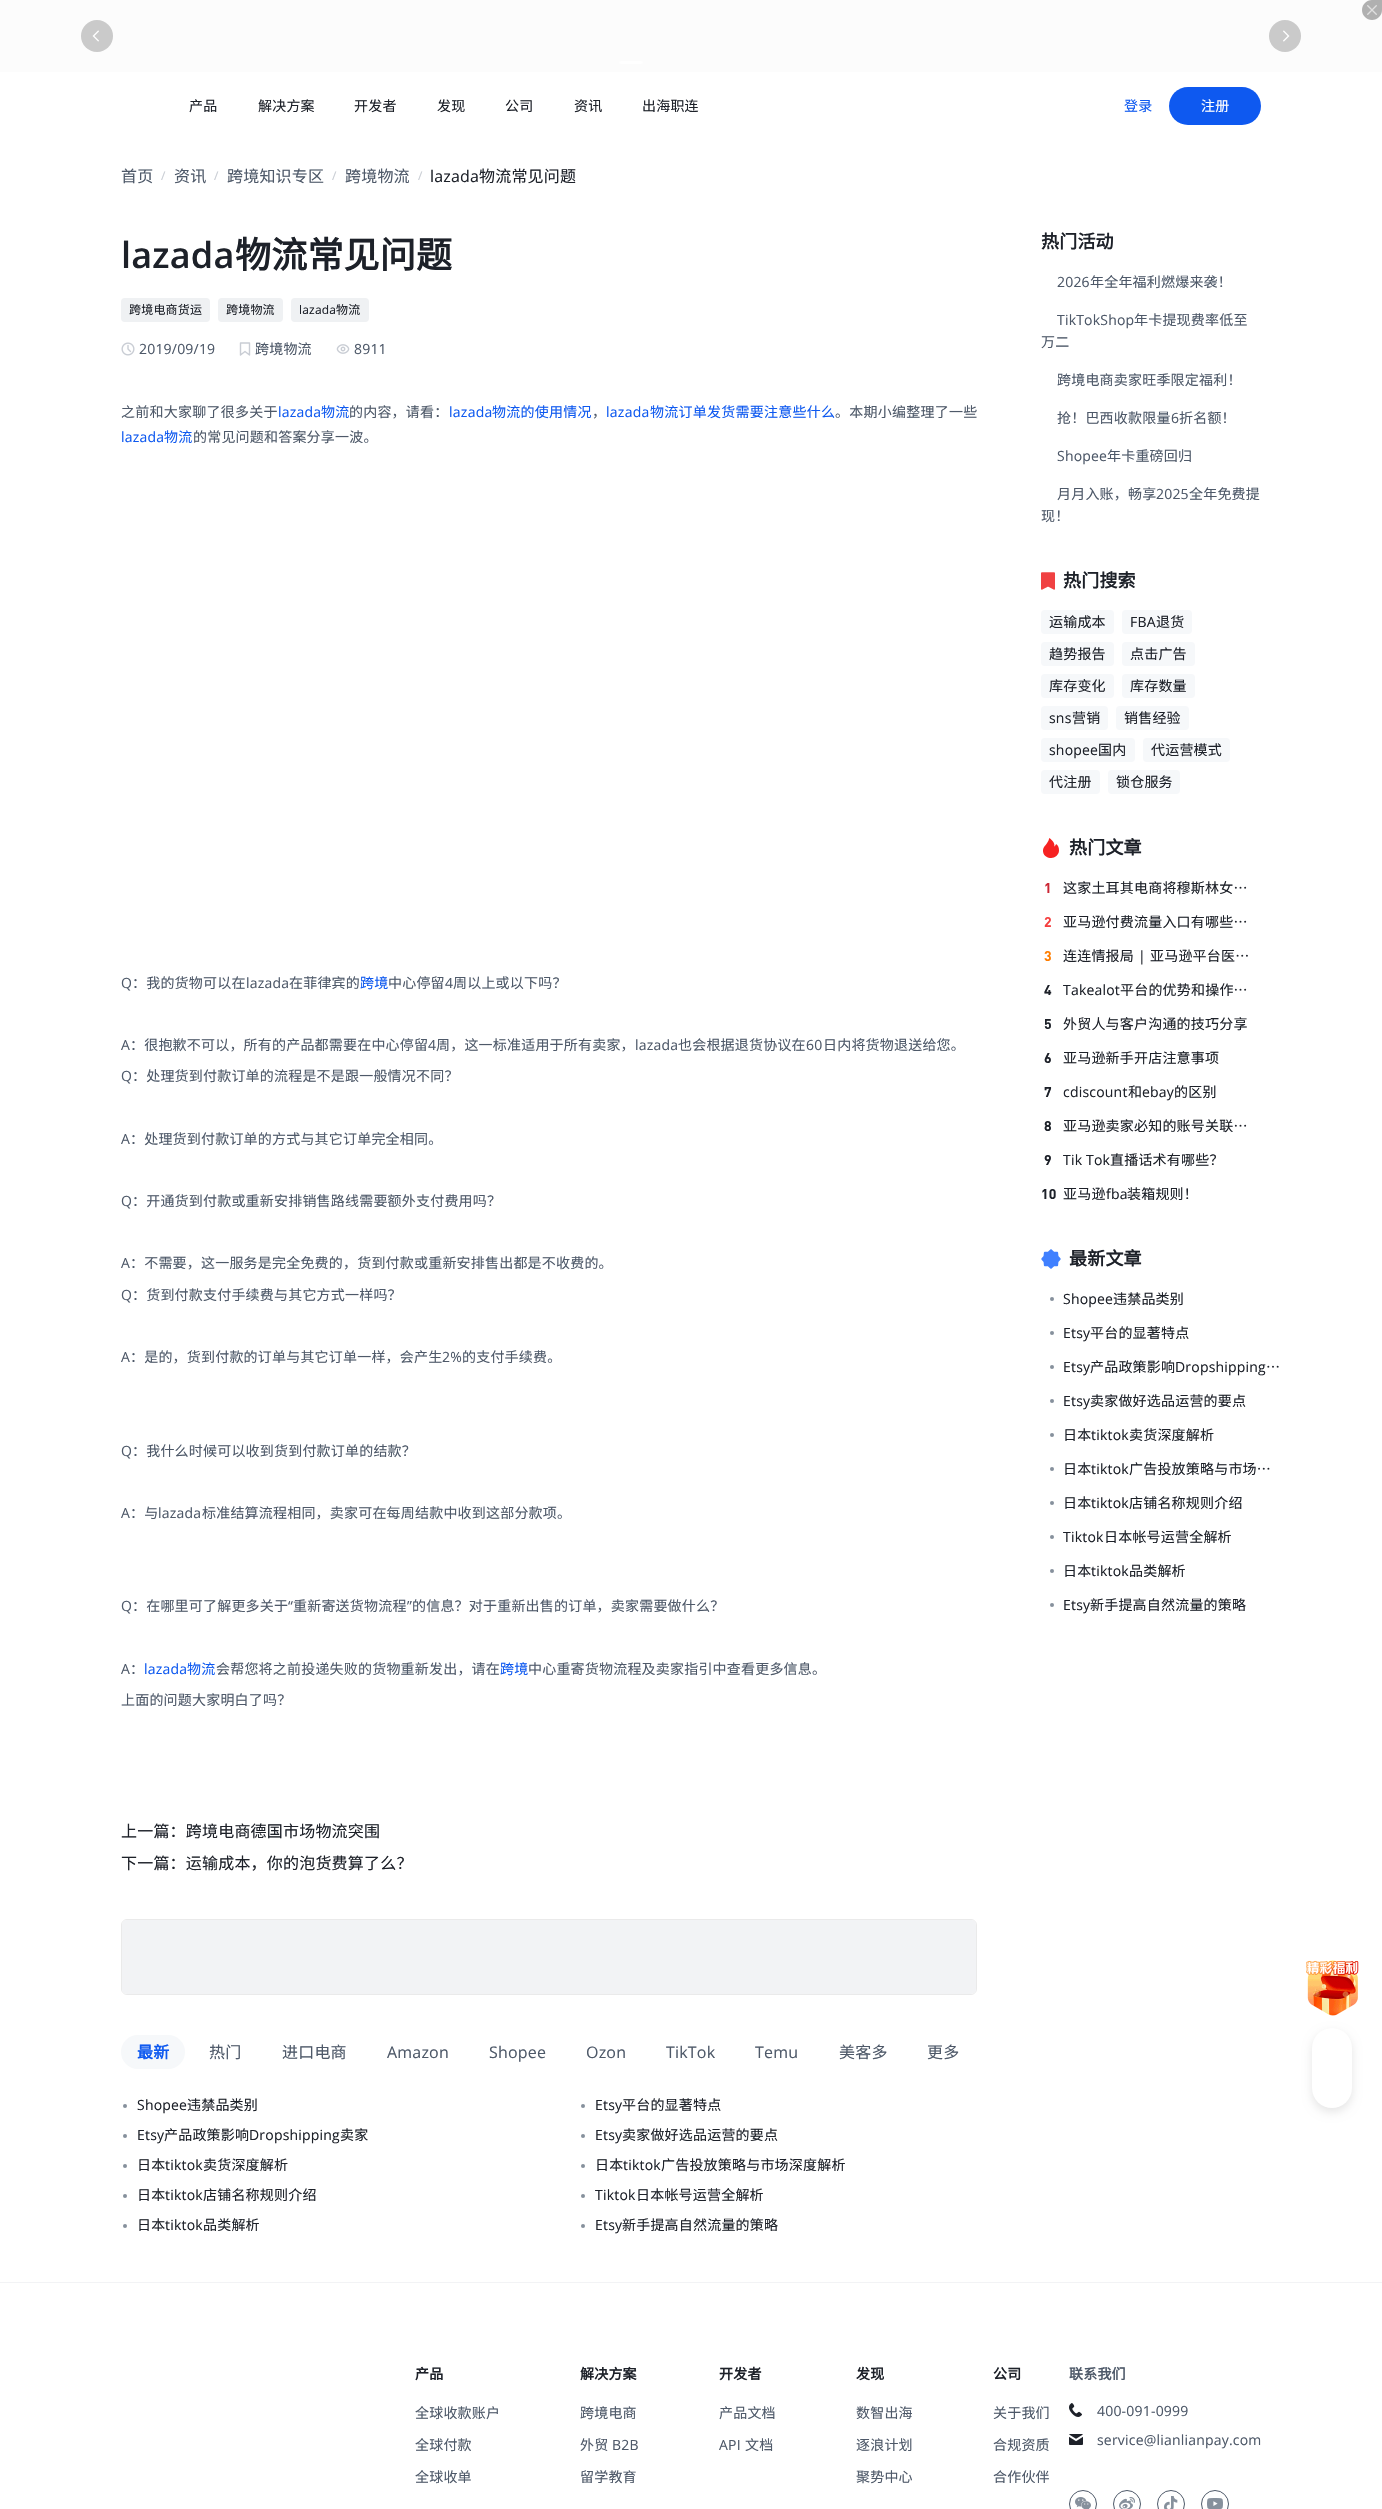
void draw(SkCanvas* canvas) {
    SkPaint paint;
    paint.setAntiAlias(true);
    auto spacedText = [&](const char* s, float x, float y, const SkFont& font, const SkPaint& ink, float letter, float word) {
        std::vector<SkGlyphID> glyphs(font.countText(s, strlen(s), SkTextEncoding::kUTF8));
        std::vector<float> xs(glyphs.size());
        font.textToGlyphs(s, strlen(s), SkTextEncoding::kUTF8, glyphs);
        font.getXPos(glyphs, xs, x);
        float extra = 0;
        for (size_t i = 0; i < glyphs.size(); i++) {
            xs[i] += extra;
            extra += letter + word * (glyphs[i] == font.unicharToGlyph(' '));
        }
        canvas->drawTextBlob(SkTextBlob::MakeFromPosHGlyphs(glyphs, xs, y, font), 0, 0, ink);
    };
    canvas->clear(0xFFFFFFFF);
    paint.setColor(0xFFFCFCFC);
    canvas->drawRect(SkRect::MakeXYWH(0, 0, 1382, 72), paint);
    paint.setColor(0xFFB0B0B0);
    canvas->drawPath(SkPathBuilder().moveTo(1372, 0).lineTo(1382, 0).lineTo(1382, 10).cubicTo(1382, 15.5f, 1377.5f, 20, 1372, 20).cubicTo(1366.5f, 20, 1362, 15.5f, 1362, 10).cubicTo(1362, 4.5f, 1366.5f, 0, 1372, 0).close().detach(), paint);
    canvas->drawImageRect(SkImages::DeferredFromEncodedData(SkData::MakeFromFileName("img1.png")), SkRect::MakeXYWH(1367, 5, 10, 10), SkSamplingOptions());
    paint.setColor(0xFFCACACA);
    canvas->drawCircle(97, 36, 16, paint);
    canvas->drawImageRect(SkImages::DeferredFromEncodedData(SkData::MakeFromFileName("img2.png")), SkRect::MakeXYWH(92, 30, 7, 12), SkSamplingOptions());
    canvas->drawCircle(1285, 36, 16, paint);
    canvas->drawImageRect(SkImages::DeferredFromEncodedData(SkData::MakeFromFileName("img3.png")), SkRect::MakeXYWH(1283, 30, 7, 12), SkSamplingOptions());
    paint.setColor(0xFFFFFFFF);
    canvas->drawRoundRect(SkRect::MakeXYWH(619, 61, 24, 3), 1.5f, 1.5f, paint);
    SkFont font1(fontMgr->matchFamilyStyle("Noto Sans CJK SC", SkFontStyle::Normal()), 14);
    font1.setSubpixel(true);
    paint.setColor(0xFF1D2129);
    spacedText("产品", 189, 111, font1, paint, 0.2f, 0);
    spacedText("解决方案", 258, 111, font1, paint, 0.2f, 0);
    spacedText("开发者", 354, 111, font1, paint, 0.2f, 0);
    spacedText("发现", 437, 111, font1, paint, 0.2f, 0);
    spacedText("公司", 505, 111, font1, paint, 0.2f, 0);
    spacedText("资讯", 574, 111, font1, paint, 0.2f, 0);
    spacedText("出海职连", 642, 111, font1, paint, 0.2f, 0);
    paint.setColor(0xFF0E59F0);
    spacedText("登录", 1124, 111, font1, paint, 0.2f, 0);
    canvas->drawRoundRect(SkRect::MakeXYWH(1169, 87, 92, 38), 19, 19, paint);
    paint.setColor(0xFFFFFFFF);
    spacedText("注册", 1201, 111, font1, paint, 0.2f, 0);
    SkFont font2(fontMgr->matchFamilyStyle("Noto Sans CJK SC", SkFontStyle::Normal()), 16);
    font2.setSubpixel(true);
    paint.setColor(0xFF4E5969);
    spacedText("首页", 121, 182, font2, paint, 0.2f, 0);
    SkFont font3(fontMgr->matchFamilyStyle("Open Sans", SkFontStyle::Normal()), 12);
    font3.setSubpixel(true);
    paint.setColor(0xFFC9CDD4);
    spacedText("/", 161, 180, font3, paint, 0.2f, 0);
    paint.setColor(0xFF4E5969);
    spacedText("资讯", 174, 182, font2, paint, 0.2f, 0);
    paint.setColor(0xFFC9CDD4);
    spacedText("/", 214, 180, font3, paint, 0.2f, 0);
    paint.setColor(0xFF4E5969);
    spacedText("跨境知识专区", 227, 182, font2, paint, 0.2f, 0);
    paint.setColor(0xFFC9CDD4);
    spacedText("/", 332, 180, font3, paint, 0.2f, 0);
    paint.setColor(0xFF4E5969);
    spacedText("跨境物流", 345, 182, font2, paint, 0.2f, 0);
    paint.setColor(0xFFC9CDD4);
    spacedText("/", 418, 180, font3, paint, 0.2f, 0);
    SkFont font4(fontMgr->matchFamilyStyle("Open Sans", SkFontStyle::Normal()), 16);
    font4.setSubpixel(true);
    paint.setColor(0xFF1D2129);
    spacedText("lazada", 430, 182, font4, paint, 0.2f, 0);
    spacedText("物流常见问题", 479, 182, font2, paint, 0.2f, 0);
    SkFont font5(fontMgr->matchFamilyStyle("Open Sans", SkFontStyle(600, SkFontStyle::kNormal_Width, SkFontStyle::kUpright_Slant)), 36);
    font5.setSubpixel(true);
    spacedText("lazada", 121, 268, font5, paint, 0.2f, 0);
    SkFont font6(fontMgr->matchFamilyStyle("Noto Sans CJK SC", SkFontStyle::Bold()), 36);
    font6.setSubpixel(true);
    spacedText("物流常见问题", 235, 268, font6, paint, 0.2f, 0);
    paint.setColor(0xFFEFF1F3);
    canvas->drawRoundRect(SkRect::MakeXYWH(121, 298, 89, 24), 4, 4, paint);
    SkFont font7(fontMgr->matchFamilyStyle("Noto Sans CJK SC", SkFontStyle::Normal()), 12);
    font7.setSubpixel(true);
    paint.setColor(0xFF1D2129);
    spacedText("跨境电商货运", 129, 314, font7, paint, 0.2f, 0);
    paint.setColor(0xFFEFF1F3);
    canvas->drawRoundRect(SkRect::MakeXYWH(218, 298, 65, 24), 4, 4, paint);
    paint.setColor(0xFF1D2129);
    spacedText("跨境物流", 226, 314, font7, paint, 0.2f, 0);
    paint.setColor(0xFFEFF1F3);
    canvas->drawRoundRect(SkRect::MakeXYWH(291, 298, 78, 24), 4, 4, paint);
    paint.setColor(0xFF1D2129);
    spacedText("lazada", 299, 314, font3, paint, 0.2f, 0);
    spacedText("物流", 336, 314, font7, paint, 0.2f, 0);
    canvas->drawImageRect(SkImages::DeferredFromEncodedData(SkData::MakeFromFileName("img4.png")), SkRect::MakeXYWH(121, 342, 14, 14), SkSamplingOptions());
    SkFont font8(fontMgr->matchFamilyStyle("Open Sans", SkFontStyle::Normal()), 14);
    font8.setSubpixel(true);
    paint.setColor(0xFF4E5969);
    spacedText("2019/09/19", 139, 354, font8, paint, 0.2f, 0);
    paint.setStyle(SkPaint::kStroke_Style);
    paint.setStrokeWidth(1.4f);
    paint.setStrokeJoin(SkPaint::kRound_Join);
    paint.setColor(0xFFC9CDD4);
    canvas->drawPath(SkPathBuilder().moveTo(240.5f, 343).lineTo(249.5f, 343).lineTo(249.5f, 355).lineTo(245, 351.5f).lineTo(240.5f, 355).close().detach(), paint);
    paint.setStyle(SkPaint::kFill_Style);
    paint.setColor(0xFF4E5969);
    spacedText("跨境物流", 255, 354, font1, paint, 0.2f, 0);
    canvas->drawImageRect(SkImages::DeferredFromEncodedData(SkData::MakeFromFileName("img5.png")), SkRect::MakeXYWH(336, 344, 14, 10), SkSamplingOptions());
    spacedText("8911", 354, 354, font8, paint, 0.2f, 0);
    spacedText("之前和大家聊了很多关于", 121, 417, font1, paint, 0.25f, 0);
    paint.setColor(0xFF0E59F0);
    spacedText("lazada", 278, 417, font8, paint, 0.2f, 0);
    spacedText("物流", 321, 417, font1, paint, 0.2f, 0);
    paint.setColor(0xFF4E5969);
    spacedText("的内容，请看：", 349, 417, font1, paint, 0.2f, 0);
    paint.setColor(0xFF0E59F0);
    spacedText("lazada", 449, 417, font8, paint, 0.25f, 0);
    spacedText("物流的使用情况", 492, 417, font1, paint, 0.25f, 0);
    paint.setColor(0xFF4E5969);
    spacedText("，", 592, 417, font1, paint, 0.2f, 0);
    paint.setColor(0xFF0E59F0);
    spacedText("lazada", 606, 417, font8, paint, 0.25f, 0);
    spacedText("物流订单发货需要注意些什么", 650, 417, font1, paint, 0.25f, 0);
    paint.setColor(0xFF4E5969);
    spacedText("。本期小编整理了一些", 835, 417, font1, paint, 0.25f, 0);
    paint.setColor(0xFF0E59F0);
    spacedText("lazada", 121, 442, font8, paint, 0.2f, 0);
    spacedText("物流", 164, 442, font1, paint, 0.2f, 0);
    paint.setColor(0xFF4E5969);
    spacedText("的常见问题和答案分享一波。", 193, 442, font1, paint, 0.2f, 0);
    spacedText("Q", 121, 988, font8, paint, 0.2f, 0);
    spacedText("：我的货物可以在", 132, 988, font1, paint, 0.2f, 0);
    spacedText("lazada", 246, 988, font8, paint, 0.2f, 0);
    spacedText("在菲律宾的", 289, 988, font1, paint, 0.2f, 0);
    paint.setColor(0xFF0E59F0);
    spacedText("跨境", 360, 988, font1, paint, 0.2f, 0);
    paint.setColor(0xFF4E5969);
    spacedText("中心停留", 388, 988, font1, paint, 0.2f, 0);
    spacedText("4", 445, 988, font8, paint, 0.2f, 0);
    spacedText("周以上或以下吗？", 453, 988, font1, paint, 0.2f, 0);
    spacedText("A", 121, 1050, font8, paint, 0.2f, 0);
    spacedText("：很抱歉不可以，所有的产品都需要在中心停留", 130, 1050, font1, paint, 0.2f, 0);
    spacedText("4", 428, 1050, font8, paint, 0.2f, 0);
    spacedText("周，这一标准适用于所有卖家，", 436, 1050, font1, paint, 0.2f, 0);
    spacedText("lazada", 635, 1050, font8, paint, 0.2f, 0);
    spacedText("也会根据退货协议在", 678, 1050, font1, paint, 0.2f, 0);
    spacedText("60", 806, 1050, font8, paint, 0.2f, 0);
    spacedText("日内将货物退送给您。", 823, 1050, font1, paint, 0.2f, 0);
    spacedText("Q", 121, 1081, font8, paint, 0.2f, 0);
    spacedText("：处理货到付款订单的流程是不是跟一般情况不同？", 132, 1081, font1, paint, 0.2f, 0);
    spacedText("A", 121, 1144, font8, paint, 0.2f, 0);
    spacedText("：处理货到付款订单的方式与其它订单完全相同。", 130, 1144, font1, paint, 0.2f, 0);
    spacedText("Q", 121, 1206, font8, paint, 0.2f, 0);
    spacedText("：开通货到付款或重新安排销售路线需要额外支付费用吗？", 132, 1206, font1, paint, 0.2f, 0);
    spacedText("A", 121, 1268, font8, paint, 0.2f, 0);
    spacedText("：不需要，这一服务是完全免费的，货到付款或重新安排售出都是不收费的。", 130, 1268, font1, paint, 0.2f, 0);
    spacedText("Q", 121, 1300, font8, paint, 0.2f, 0);
    spacedText("：货到付款支付手续费与其它方式一样吗？", 132, 1300, font1, paint, 0.2f, 0);
    spacedText("A", 121, 1362, font8, paint, 0.2f, 0);
    spacedText("：是的，货到付款的订单与其它订单一样，会产生", 130, 1362, font1, paint, 0.2f, 0);
    spacedText("2%", 442, 1362, font8, paint, 0.2f, 0);
    spacedText("的支付手续费。", 462, 1362, font1, paint, 0.2f, 0);
    spacedText("Q", 121, 1456, font8, paint, 0.2f, 0);
    spacedText("：我什么时候可以收到货到付款订单的结款？", 132, 1456, font1, paint, 0.2f, 0);
    spacedText("A", 121, 1518, font8, paint, 0.2f, 0);
    spacedText("：与", 130, 1518, font1, paint, 0.2f, 0);
    spacedText("lazada", 158, 1518, font8, paint, 0.2f, 0);
    spacedText("标准结算流程相同，卖家可在每周结款中收到这部分款项。", 202, 1518, font1, paint, 0.2f, 0);
    spacedText("Q", 121, 1611, font8, paint, 0.2f, 0);
    spacedText("：在哪里可了解更多关于", 132, 1611, font1, paint, 0.2f, 0);
    spacedText("“", 288, 1611, font8, paint, 0.2f, 0);
    spacedText("重新寄送货物流程", 293, 1611, font1, paint, 0.2f, 0);
    spacedText("”", 407, 1611, font8, paint, 0.2f, 0);
    spacedText("的信息？对于重新出售的订单，卖家需要做什么？", 412, 1611, font1, paint, 0.2f, 0);
    spacedText("A", 121, 1674, font8, paint, 0.2f, 0);
    spacedText("：", 130, 1674, font1, paint, 0.2f, 0);
    paint.setColor(0xFF0E59F0);
    spacedText("lazada", 144, 1674, font8, paint, 0.2f, 0);
    spacedText("物流", 187, 1674, font1, paint, 0.2f, 0);
    paint.setColor(0xFF4E5969);
    spacedText("会帮您将之前投递失败的货物重新发出，请在", 216, 1674, font1, paint, 0.2f, 0);
    paint.setColor(0xFF0E59F0);
    spacedText("跨境", 500, 1674, font1, paint, 0.2f, 0);
    paint.setColor(0xFF4E5969);
    spacedText("中心重寄货物流程及卖家指引中查看更多信息。", 528, 1674, font1, paint, 0.2f, 0);
    spacedText("上面的问题大家明白了吗？", 121, 1705, font1, paint, 0.2f, 0);
    paint.setColor(0xFF1D2129);
    spacedText("上一篇：跨境电商德国市场物流突围", 121, 1837, font2, paint, 0.2f, 0);
    spacedText("下一篇：运输成本，你的泡货费算了么？", 121, 1869, font2, paint, 0.2f, 0);
    paint.setStyle(SkPaint::kStroke_Style);
    paint.setStrokeWidth(1);
    paint.setStrokeJoin(SkPaint::kMiter_Join);
    paint.setColor(0xFFEAEAEA);
    canvas->drawRoundRect(SkRect::MakeXYWH(121.5f, 1919.5f, 855, 75), 5.5f, 5.5f, paint);
    paint.setStyle(SkPaint::kFill_Style);
    paint.setColor(0xFFF2F3F5);
    canvas->drawRoundRect(SkRect::MakeXYWH(122, 1920, 854, 74), 5, 5, paint);
    paint.setColor(0xFFF6F8FA);
    canvas->drawRoundRect(SkRect::MakeXYWH(121, 2035, 64, 34), 17, 17, paint);
    SkFont font9(fontMgr->matchFamilyStyle("Noto Sans CJK SC", SkFontStyle::Bold()), 16);
    font9.setSubpixel(true);
    paint.setColor(0xFF0E59F0);
    spacedText("最新", 137, 2058, font9, paint, 0.2f, 0);
    paint.setColor(0xFF4E5969);
    spacedText("热门", 209, 2058, font2, paint, 0.2f, 0);
    spacedText("进口电商", 282, 2058, font2, paint, 0.2f, 0);
    spacedText("Amazon", 387, 2058, font4, paint, 0.2f, 0);
    spacedText("Shopee", 489, 2058, font4, paint, 0.2f, 0);
    spacedText("Ozon", 586, 2058, font4, paint, 0.2f, 0);
    spacedText("TikTok", 666, 2058, font4, paint, 0.2f, 0);
    spacedText("Temu", 755, 2058, font4, paint, 0.2f, 0);
    spacedText("美客多", 839, 2058, font2, paint, 0.2f, 0);
    spacedText("更多", 927, 2058, font2, paint, 0.2f, 0);
    paint.setColor(0xFF86909C);
    canvas->drawCircle(125, 2106, 2, paint);
    paint.setColor(0xFF1D2129);
    spacedText("Shopee", 137, 2110, font8, paint, 0.2f, 0);
    spacedText("违禁品类别", 187, 2110, font1, paint, 0.2f, 0);
    paint.setColor(0xFF86909C);
    canvas->drawCircle(583, 2106, 2, paint);
    paint.setColor(0xFF1D2129);
    spacedText("Etsy", 595, 2110, font8, paint, 0.2f, 0);
    spacedText("平台的显著特点", 622, 2110, font1, paint, 0.2f, 0);
    paint.setColor(0xFF86909C);
    canvas->drawCircle(125, 2136, 2, paint);
    paint.setColor(0xFF1D2129);
    spacedText("Etsy", 137, 2140, font8, paint, 0.2f, 0);
    spacedText("产品政策影响", 164, 2140, font1, paint, 0.2f, 0);
    spacedText("Dropshipping", 249, 2140, font8, paint, 0.2f, 0);
    spacedText("卖家", 340, 2140, font1, paint, 0.2f, 0);
    paint.setColor(0xFF86909C);
    canvas->drawCircle(583, 2136, 2, paint);
    paint.setColor(0xFF1D2129);
    spacedText("Etsy", 595, 2140, font8, paint, 0.2f, 0);
    spacedText("卖家做好选品运营的要点", 622, 2140, font1, paint, 0.2f, 0);
    paint.setColor(0xFF86909C);
    canvas->drawCircle(125, 2166, 2, paint);
    paint.setColor(0xFF1D2129);
    spacedText("日本", 137, 2170, font1, paint, 0.2f, 0);
    spacedText("tiktok", 165, 2170, font8, paint, 0.2f, 0);
    spacedText("卖货深度解析", 203, 2170, font1, paint, 0.2f, 0);
    paint.setColor(0xFF86909C);
    canvas->drawCircle(583, 2166, 2, paint);
    paint.setColor(0xFF1D2129);
    spacedText("日本", 595, 2170, font1, paint, 0.2f, 0);
    spacedText("tiktok", 623, 2170, font8, paint, 0.2f, 0);
    spacedText("广告投放策略与市场深度解析", 661, 2170, font1, paint, 0.2f, 0);
    paint.setColor(0xFF86909C);
    canvas->drawCircle(125, 2196, 2, paint);
    paint.setColor(0xFF1D2129);
    spacedText("日本", 137, 2200, font1, paint, 0.2f, 0);
    spacedText("tiktok", 165, 2200, font8, paint, 0.2f, 0);
    spacedText("店铺名称规则介绍", 203, 2200, font1, paint, 0.2f, 0);
    paint.setColor(0xFF86909C);
    canvas->drawCircle(583, 2196, 2, paint);
    paint.setColor(0xFF1D2129);
    spacedText("Tiktok", 595, 2200, font8, paint, 0.2f, 0);
    spacedText("日本帐号运营全解析", 636, 2200, font1, paint, 0.2f, 0);
    paint.setColor(0xFF86909C);
    canvas->drawCircle(125, 2226, 2, paint);
    paint.setColor(0xFF1D2129);
    spacedText("日本", 137, 2230, font1, paint, 0.2f, 0);
    spacedText("tiktok", 165, 2230, font8, paint, 0.2f, 0);
    spacedText("品类解析", 203, 2230, font1, paint, 0.2f, 0);
    paint.setColor(0xFF86909C);
    canvas->drawCircle(583, 2226, 2, paint);
    paint.setColor(0xFF1D2129);
    spacedText("Etsy", 595, 2230, font8, paint, 0.2f, 0);
    spacedText("新手提高自然流量的策略", 622, 2230, font1, paint, 0.2f, 0);
    SkFont font10(fontMgr->matchFamilyStyle("Noto Sans CJK SC", SkFontStyle::Bold()), 18);
    font10.setSubpixel(true);
    spacedText("热门活动", 1041, 248, font10, paint, 0.2f, 0);
    paint.setColor(0xFF4E5969);
    spacedText("2026", 1057, 287, font8, paint, 0.2f, 0);
    spacedText("年全年福利燃爆来袭！", 1090, 287, font1, paint, 0.2f, 0);
    spacedText("TikTokShop", 1057, 325, font8, paint, 0.2f, 0);
    spacedText("年卡提现费率低至", 1134, 325, font1, paint, 0.2f, 0);
    spacedText("万二", 1041, 347, font1, paint, 0.2f, 0);
    spacedText("跨境电商卖家旺季限定福利！", 1057, 385, font1, paint, 0.2f, 0);
    spacedText("抢！巴西收款限量", 1057, 423, font1, paint, 0.2f, 0);
    spacedText("6", 1171, 423, font8, paint, 0.2f, 0);
    spacedText("折名额！", 1179, 423, font1, paint, 0.2f, 0);
    spacedText("Shopee", 1057, 461, font8, paint, 0.2f, 0);
    spacedText("年卡重磅回归", 1107, 461, font1, paint, 0.2f, 0);
    spacedText("月月入账，畅享", 1057, 499, font1, paint, 0.2f, 0);
    spacedText("2025", 1156, 499, font8, paint, 0.2f, 0);
    spacedText("全年免费提", 1189, 499, font1, paint, 0.2f, 0);
    spacedText("现！", 1041, 521, font1, paint, 0.2f, 0);
    canvas->drawImageRect(SkImages::DeferredFromEncodedData(SkData::MakeFromFileName("img6.png")), SkRect::MakeXYWH(1041, 572, 14, 18), SkSamplingOptions());
    paint.setColor(0xFF1D2129);
    spacedText("热门搜索", 1063, 587, font10, paint, 0.2f, 0);
    paint.setColor(0xFFF6F8FA);
    canvas->drawRoundRect(SkRect::MakeXYWH(1041, 610, 73, 24), 4, 4, paint);
    paint.setColor(0xFF1D2129);
    spacedText("运输成本", 1049, 627, font1, paint, 0.2f, 0);
    paint.setColor(0xFFF6F8FA);
    canvas->drawRoundRect(SkRect::MakeXYWH(1122, 610, 70, 24), 4, 4, paint);
    paint.setColor(0xFF1D2129);
    spacedText("FBA", 1130, 627, font8, paint, 0.2f, 0);
    spacedText("退货", 1156, 627, font1, paint, 0.2f, 0);
    paint.setColor(0xFFF6F8FA);
    canvas->drawRoundRect(SkRect::MakeXYWH(1041, 642, 73, 24), 4, 4, paint);
    paint.setColor(0xFF1D2129);
    spacedText("趋势报告", 1049, 659, font1, paint, 0.2f, 0);
    paint.setColor(0xFFF6F8FA);
    canvas->drawRoundRect(SkRect::MakeXYWH(1122, 642, 73, 24), 4, 4, paint);
    paint.setColor(0xFF1D2129);
    spacedText("点击广告", 1130, 659, font1, paint, 0.2f, 0);
    paint.setColor(0xFFF6F8FA);
    canvas->drawRoundRect(SkRect::MakeXYWH(1041, 674, 73, 24), 4, 4, paint);
    paint.setColor(0xFF1D2129);
    spacedText("库存变化", 1049, 691, font1, paint, 0.2f, 0);
    paint.setColor(0xFFF6F8FA);
    canvas->drawRoundRect(SkRect::MakeXYWH(1122, 674, 73, 24), 4, 4, paint);
    paint.setColor(0xFF1D2129);
    spacedText("库存数量", 1130, 691, font1, paint, 0.2f, 0);
    paint.setColor(0xFFF6F8FA);
    canvas->drawRoundRect(SkRect::MakeXYWH(1041, 706, 67, 24), 4, 4, paint);
    paint.setColor(0xFF1D2129);
    spacedText("sns", 1049, 723, font8, paint, 0.2f, 0);
    spacedText("营销", 1072, 723, font1, paint, 0.2f, 0);
    paint.setColor(0xFFF6F8FA);
    canvas->drawRoundRect(SkRect::MakeXYWH(1116, 706, 73, 24), 4, 4, paint);
    paint.setColor(0xFF1D2129);
    spacedText("销售经验", 1124, 723, font1, paint, 0.2f, 0);
    paint.setColor(0xFFF6F8FA);
    canvas->drawRoundRect(SkRect::MakeXYWH(1041, 738, 94, 24), 4, 4, paint);
    paint.setColor(0xFF1D2129);
    spacedText("shopee", 1049, 755, font8, paint, 0.2f, 0);
    spacedText("国内", 1098, 755, font1, paint, 0.2f, 0);
    paint.setColor(0xFFF6F8FA);
    canvas->drawRoundRect(SkRect::MakeXYWH(1143, 738, 87, 24), 4, 4, paint);
    paint.setColor(0xFF1D2129);
    spacedText("代运营模式", 1151, 755, font1, paint, 0.2f, 0);
    paint.setColor(0xFFF6F8FA);
    canvas->drawRoundRect(SkRect::MakeXYWH(1041, 770, 59, 24), 4, 4, paint);
    paint.setColor(0xFF1D2129);
    spacedText("代注册", 1049, 787, font1, paint, 0.2f, 0);
    paint.setColor(0xFFF6F8FA);
    canvas->drawRoundRect(SkRect::MakeXYWH(1108, 770, 72, 24), 4, 4, paint);
    paint.setColor(0xFF1D2129);
    spacedText("锁仓服务", 1116, 787, font1, paint, 0.2f, 0);
    canvas->drawImageRect(SkImages::DeferredFromEncodedData(SkData::MakeFromFileName("img7.png")), SkRect::MakeXYWH(1043, 838, 16, 20), SkSamplingOptions());
    spacedText("热门文章", 1069, 854, font10, paint, 0.2f, 0);
    SkFont font11(fontMgr->matchFamilyStyle("DIN", SkFontStyle::Bold()), 14);
    font11.setSubpixel(true);
    paint.setColor(0xFFCB2634);
    spacedText("1", 1044, 893, font11, paint, 0.2f, 0);
    paint.setColor(0xFF1D2129);
    spacedText("这家土耳其电商将穆斯林女…", 1063, 893, font1, paint, 0.2f, 0);
    paint.setColor(0xFFF53F3F);
    spacedText("2", 1044, 927, font11, paint, 0.2f, 0);
    paint.setColor(0xFF1D2129);
    spacedText("亚马逊付费流量入口有哪些…", 1063, 927, font1, paint, 0.2f, 0);
    paint.setColor(0xFFFF7D00);
    spacedText("3", 1044, 961, font11, paint, 0.2f, 0);
    paint.setColor(0xFF1D2129);
    spacedText("连连情报局", 1063, 961, font1, paint, 0.2f, 0);
    spacedText("|", 1138, 961, font8, paint, 0.2f, 0);
    spacedText("亚马逊平台医…", 1150, 961, font1, paint, 0.2f, 0);
    spacedText("4", 1044, 995, font11, paint, 0.2f, 0);
    spacedText("Takealot", 1063, 995, font8, paint, 0.2f, 0);
    spacedText("平台的优势和操作…", 1120, 995, font1, paint, 0.2f, 0);
    spacedText("5", 1044, 1029, font11, paint, 0.2f, 0);
    spacedText("外贸人与客户沟通的技巧分享", 1063, 1029, font1, paint, 0.2f, 0);
    spacedText("6", 1044, 1063, font11, paint, 0.2f, 0);
    spacedText("亚马逊新手开店注意事项", 1063, 1063, font1, paint, 0.2f, 0);
    spacedText("7", 1044, 1097, font11, paint, 0.2f, 0);
    spacedText("cdiscount", 1063, 1097, font8, paint, 0.2f, 0);
    spacedText("和", 1128, 1097, font1, paint, 0.2f, 0);
    spacedText("ebay", 1142, 1097, font8, paint, 0.2f, 0);
    spacedText("的区别", 1174, 1097, font1, paint, 0.2f, 0);
    spacedText("8", 1044, 1131, font11, paint, 0.2f, 0);
    spacedText("亚马逊卖家必知的账号关联…", 1063, 1131, font1, paint, 0.2f, 0);
    spacedText("9", 1044, 1165, font11, paint, 0.2f, 0);
    spacedText("Tik Tok", 1063, 1165, font8, paint, 0.2f, 0);
    spacedText("直播话术有哪些？", 1110, 1165, font1, paint, 0.2f, 0);
    spacedText("10", 1041, 1199, font11, paint, 0.2f, 0);
    spacedText("亚马逊", 1063, 1199, font1, paint, 0.2f, 0);
    spacedText("fba", 1106, 1199, font8, paint, 0.2f, 0);
    spacedText("装箱规则！", 1127, 1199, font1, paint, 0.2f, 0);
    canvas->drawImageRect(SkImages::DeferredFromEncodedData(SkData::MakeFromFileName("img8.png")), SkRect::MakeXYWH(1041, 1249, 20, 20), SkSamplingOptions());
    spacedText("最新文章", 1069, 1265, font10, paint, 0.2f, 0);
    paint.setColor(0xFF86909C);
    canvas->drawCircle(1052, 1299, 2, paint);
    paint.setColor(0xFF1D2129);
    spacedText("Shopee", 1063, 1304, font8, paint, 0.2f, 0);
    spacedText("违禁品类别", 1113, 1304, font1, paint, 0.2f, 0);
    paint.setColor(0xFF86909C);
    canvas->drawCircle(1052, 1333, 2, paint);
    paint.setColor(0xFF1D2129);
    spacedText("Etsy", 1063, 1338, font8, paint, 0.2f, 0);
    spacedText("平台的显著特点", 1090, 1338, font1, paint, 0.2f, 0);
    paint.setColor(0xFF86909C);
    canvas->drawCircle(1052, 1367, 2, paint);
    paint.setColor(0xFF1D2129);
    spacedText("Etsy", 1063, 1372, font8, paint, 0.2f, 0);
    spacedText("产品政策影响", 1090, 1372, font1, paint, 0.2f, 0);
    spacedText("Dropshipping", 1175, 1372, font8, paint, 0.2f, 0);
    spacedText("…", 1266, 1372, font1, paint, 0.2f, 0);
    paint.setColor(0xFF86909C);
    canvas->drawCircle(1052, 1401, 2, paint);
    paint.setColor(0xFF1D2129);
    spacedText("Etsy", 1063, 1406, font8, paint, 0.2f, 0);
    spacedText("卖家做好选品运营的要点", 1090, 1406, font1, paint, 0.2f, 0);
    paint.setColor(0xFF86909C);
    canvas->drawCircle(1052, 1435, 2, paint);
    paint.setColor(0xFF1D2129);
    spacedText("日本", 1063, 1440, font1, paint, 0.2f, 0);
    spacedText("tiktok", 1091, 1440, font8, paint, 0.2f, 0);
    spacedText("卖货深度解析", 1129, 1440, font1, paint, 0.2f, 0);
    paint.setColor(0xFF86909C);
    canvas->drawCircle(1052, 1469, 2, paint);
    paint.setColor(0xFF1D2129);
    spacedText("日本", 1063, 1474, font1, paint, 0.2f, 0);
    spacedText("tiktok", 1091, 1474, font8, paint, 0.2f, 0);
    spacedText("广告投放策略与市场…", 1129, 1474, font1, paint, 0.2f, 0);
    paint.setColor(0xFF86909C);
    canvas->drawCircle(1052, 1503, 2, paint);
    paint.setColor(0xFF1D2129);
    spacedText("日本", 1063, 1508, font1, paint, 0.2f, 0);
    spacedText("tiktok", 1091, 1508, font8, paint, 0.2f, 0);
    spacedText("店铺名称规则介绍", 1129, 1508, font1, paint, 0.2f, 0);
    paint.setColor(0xFF86909C);
    canvas->drawCircle(1052, 1537, 2, paint);
    paint.setColor(0xFF1D2129);
    spacedText("Tiktok", 1063, 1542, font8, paint, 0.2f, 0);
    spacedText("日本帐号运营全解析", 1104, 1542, font1, paint, 0.2f, 0);
    paint.setColor(0xFF86909C);
    canvas->drawCircle(1052, 1571, 2, paint);
    paint.setColor(0xFF1D2129);
    spacedText("日本", 1063, 1576, font1, paint, 0.2f, 0);
    spacedText("tiktok", 1091, 1576, font8, paint, 0.2f, 0);
    spacedText("品类解析", 1129, 1576, font1, paint, 0.2f, 0);
    paint.setColor(0xFF86909C);
    canvas->drawCircle(1052, 1605, 2, paint);
    paint.setColor(0xFF1D2129);
    spacedText("Etsy", 1063, 1610, font8, paint, 0.2f, 0);
    spacedText("新手提高自然流量的策略", 1090, 1610, font1, paint, 0.2f, 0);
    canvas->drawImageRect(SkImages::DeferredFromEncodedData(SkData::MakeFromFileName("img9.png")), SkRect::MakeXYWH(1306, 1960, 53, 56), SkSamplingOptions());
    paint.setColor(0x1A000000);
    paint.setMaskFilter(SkMaskFilter::MakeBlur(kNormal_SkBlurStyle, 5));
    canvas->drawRoundRect(SkRect::MakeXYWH(1312, 2032, 40, 80), 20, 20, paint);
    paint.setMaskFilter(nullptr);
    paint.setColor(0xFFFFFFFF);
    canvas->drawRoundRect(SkRect::MakeXYWH(1312, 2028, 40, 80), 20, 20, paint);
    paint.setColor(0xFFF2F3F5);
    canvas->drawRect(SkRect::MakeXYWH(0, 2282, 1382, 1), paint);
    SkFont font12(fontMgr->matchFamilyStyle("Noto Sans CJK SC", SkFontStyle::Bold()), 14);
    font12.setSubpixel(true);
    paint.setColor(0xFF1D2129);
    spacedText("产品", 415, 2379, font12, paint, 0.2f, 0);
    paint.setColor(0xFF4E5969);
    spacedText("全球收款账户", 415, 2418, font1, paint, 0.2f, 0);
    spacedText("全球付款", 415, 2450, font1, paint, 0.2f, 0);
    spacedText("全球收单", 415, 2482, font1, paint, 0.2f, 0);
    paint.setColor(0xFF1D2129);
    spacedText("解决方案", 580, 2379, font12, paint, 0.2f, 0);
    paint.setColor(0xFF4E5969);
    spacedText("跨境电商", 580, 2418, font1, paint, 0.2f, 0);
    spacedText("外贸", 580, 2450, font1, paint, 0.2f, 0);
    spacedText("B2B", 612, 2450, font8, paint, 0.2f, 0);
    spacedText("留学教育", 580, 2482, font1, paint, 0.2f, 0);
    paint.setColor(0xFF1D2129);
    spacedText("开发者", 719, 2379, font12, paint, 0.2f, 0);
    paint.setColor(0xFF4E5969);
    spacedText("产品文档", 719, 2418, font1, paint, 0.2f, 0);
    spacedText("API", 719, 2450, font8, paint, 0.2f, 0);
    spacedText("文档", 745, 2450, font1, paint, 0.2f, 0);
    paint.setColor(0xFF1D2129);
    spacedText("发现", 856, 2379, font12, paint, 0.2f, 0);
    paint.setColor(0xFF4E5969);
    spacedText("数智出海", 856, 2418, font1, paint, 0.2f, 0);
    spacedText("逐浪计划", 856, 2450, font1, paint, 0.2f, 0);
    spacedText("聚势中心", 856, 2482, font1, paint, 0.2f, 0);
    paint.setColor(0xFF1D2129);
    spacedText("公司", 993, 2379, font12, paint, 0.2f, 0);
    paint.setColor(0xFF4E5969);
    spacedText("关于我们", 993, 2418, font1, paint, 0.2f, 0);
    spacedText("合规资质", 993, 2450, font1, paint, 0.2f, 0);
    spacedText("合作伙伴", 993, 2482, font1, paint, 0.2f, 0);
    spacedText("联系我们", 1069, 2379, font12, paint, 0.2f, 0);
    canvas->drawImageRect(SkImages::DeferredFromEncodedData(SkData::MakeFromFileName("img10.png")), SkRect::MakeXYWH(1069, 2403, 13, 14), SkSamplingOptions());
    spacedText("400-091-0999", 1097, 2416, font8, paint, 0.2f, 0);
    canvas->drawImageRect(SkImages::DeferredFromEncodedData(SkData::MakeFromFileName("img11.png")), SkRect::MakeXYWH(1069, 2434, 14, 11), SkSamplingOptions());
    spacedText("service@lianlianpay.com", 1097, 2445, font8, paint, 0.2f, 0);
    paint.setStyle(SkPaint::kStroke_Style);
    canvas->drawCircle(1083, 2504, 13.5f, paint);
    canvas->drawImageRect(SkImages::DeferredFromEncodedData(SkData::MakeFromFileName("img12.png")), SkRect::MakeXYWH(1075, 2497, 16, 12), SkSamplingOptions());
    canvas->drawCircle(1127, 2504, 13.5f, paint);
    canvas->drawImageRect(SkImages::DeferredFromEncodedData(SkData::MakeFromFileName("img13.png")), SkRect::MakeXYWH(1119, 2497, 16, 12), SkSamplingOptions());
    canvas->drawCircle(1171, 2504, 13.5f, paint);
    canvas->drawImageRect(SkImages::DeferredFromEncodedData(SkData::MakeFromFileName("img14.png")), SkRect::MakeXYWH(1164, 2496, 14, 13), SkSamplingOptions());
    canvas->drawCircle(1215, 2504, 13.5f, paint);
    canvas->drawImageRect(SkImages::DeferredFromEncodedData(SkData::MakeFromFileName("img15.png")), SkRect::MakeXYWH(1207, 2498, 16, 11), SkSamplingOptions());
}
